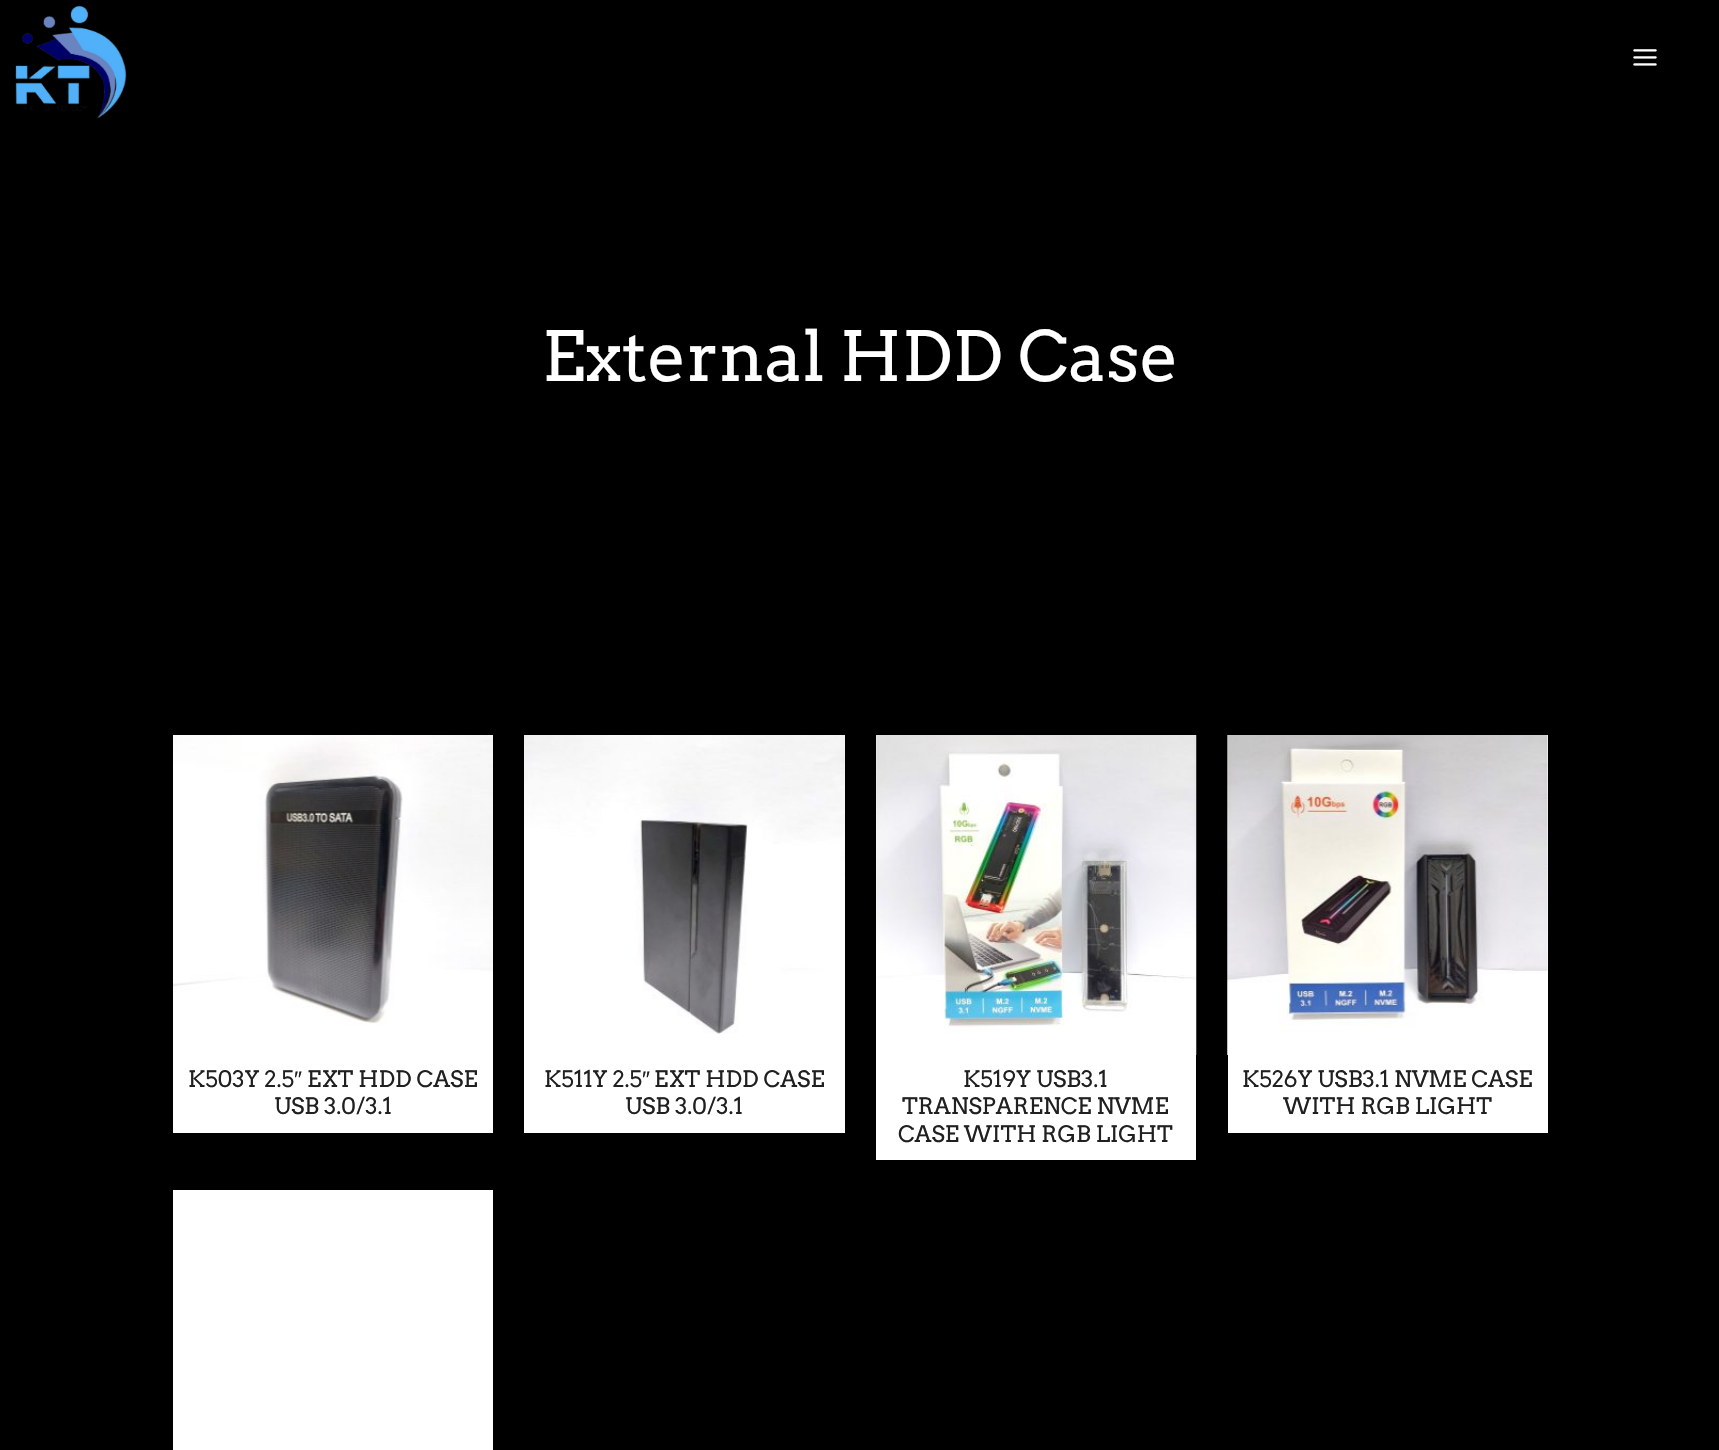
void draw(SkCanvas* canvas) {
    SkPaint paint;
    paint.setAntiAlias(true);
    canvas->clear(0xFF000000);
    canvas->drawImageRect(SkImages::DeferredFromEncodedData(SkData::MakeFromFileName("img1.png")), SkRect::MakeXYWH(15, 6, 112, 113), SkSamplingOptions());
    canvas->drawImageRect(SkImages::DeferredFromEncodedData(SkData::MakeFromFileName("img2.png")), SkRect::MakeXYWH(1633, 49, 24, 17), SkSamplingOptions());
    SkFont font1(fontMgr->matchFamilyStyle("Arvo", SkFontStyle::Normal()), 68.75f);
    font1.setSubpixel(true);
    paint.setColor(0xFFFFFFFF);
    canvas->drawString("External HDD Case", 542, 381, font1, paint);
    canvas->drawRect(SkRect::MakeXYWH(173, 1025, 320, 108), paint);
    canvas->drawImageRect(SkImages::DeferredFromEncodedData(SkData::MakeFromFileName("img3.png")), SkRect::MakeXYWH(173, 735, 320, 290), SkSamplingOptions());
    SkFont font2(fontMgr->matchFamilyStyle("Arvo", SkFontStyle::Normal()), 22.5f);
    font2.setSubpixel(true);
    paint.setColor(0xFF202020);
    canvas->drawString("K503Y 2.5", 188, 1087, font2, paint);
    SkFont font3(fontMgr->matchFamilyStyle("Liberation Sans", SkFontStyle::Normal()), 22.5f);
    font3.setSubpixel(true);
    canvas->drawString("″", 294, 1087, font3, paint);
    canvas->drawString("EXT HDD CASE", 307, 1087, font2, paint);
    canvas->drawString("USB 3.0/3.1", 274, 1114, font2, paint);
    paint.setColor(0xFFFFFFFF);
    canvas->drawRect(SkRect::MakeXYWH(524, 735, 321, 398), paint);
    canvas->drawImageRect(SkImages::DeferredFromEncodedData(SkData::MakeFromFileName("img4.png")), SkRect::MakeXYWH(524, 735, 321, 299), SkSamplingOptions());
    paint.setColor(0xFF202020);
    canvas->drawString("K511Y 2.5", 544, 1087, font2, paint);
    canvas->drawString("″", 642, 1087, font3, paint);
    canvas->drawString("EXT HDD CASE", 654, 1087, font2, paint);
    canvas->drawString("USB 3.0/3.1", 625, 1114, font2, paint);
    paint.setColor(0xFFFFFFFF);
    canvas->drawRect(SkRect::MakeXYWH(876, 735, 320, 425), paint);
    canvas->drawImageRect(SkImages::DeferredFromEncodedData(SkData::MakeFromFileName("img5.png")), SkRect::MakeXYWH(876, 735, 321, 320), SkSamplingOptions());
    paint.setColor(0xFF202020);
    canvas->drawString("K519Y USB3.1", 963, 1087, font2, paint);
    canvas->drawString("TRANSPARENCE NVME", 902, 1114, font2, paint);
    canvas->drawString("CASE WITH RGB LIGHT", 898, 1142, font2, paint);
    paint.setColor(0xFFFFFFFF);
    canvas->drawRect(SkRect::MakeXYWH(1228, 735, 320, 398), paint);
    canvas->drawImageRect(SkImages::DeferredFromEncodedData(SkData::MakeFromFileName("img6.png")), SkRect::MakeXYWH(1227, 735, 321, 320), SkSamplingOptions());
    paint.setColor(0xFF202020);
    canvas->drawString("K526Y USB3.1 NVME CASE", 1242, 1087, font2, paint);
    canvas->drawString("WITH RGB LIGHT", 1283, 1114, font2, paint);
    paint.setColor(0xFFFFFFFF);
    canvas->drawRect(SkRect::MakeXYWH(173, 1190, 320, 260), paint);
}
